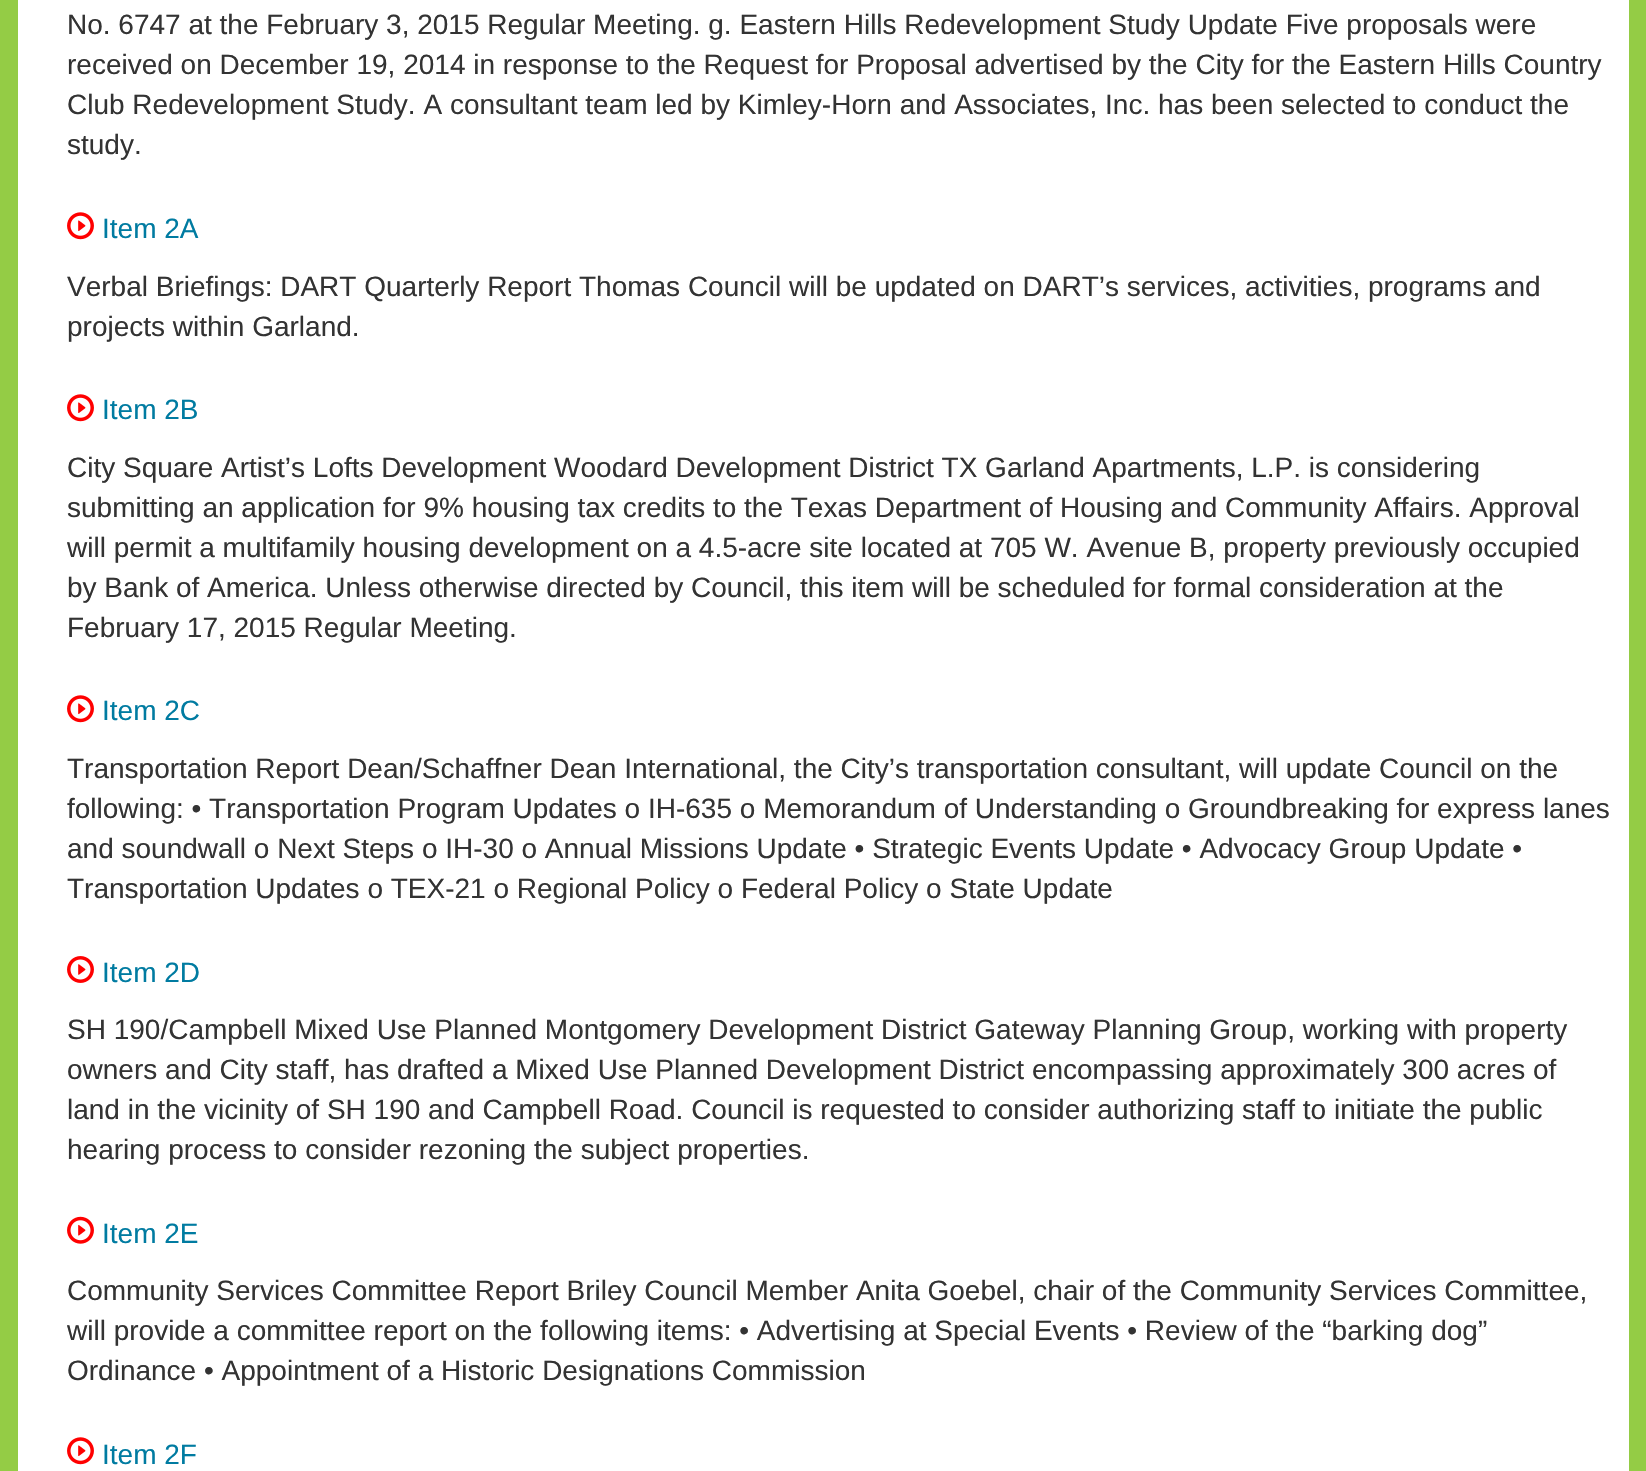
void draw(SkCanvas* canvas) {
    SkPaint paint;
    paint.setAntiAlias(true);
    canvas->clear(0xFF94CC45);
    paint.setColor(0xFFFFFFFF);
    canvas->drawRect(SkRect::MakeXYWH(18, 0, 1611, 1471), paint);
    SkFont font1(fontMgr->matchFamilyStyle("Liberation Sans", SkFontStyle::Normal()), 28);
    font1.setSubpixel(true);
    paint.setColor(0xFF333333);
    canvas->drawString("No. 6747 at the February 3, 2015 Regular Meeting. g. Eastern Hills Redevelopment Study Update Five proposals were", 67, 34, font1, paint);
    canvas->drawString("received on December 19, 2014 in response to the Request for Proposal advertised by the City for the Eastern Hills Country", 67, 74, font1, paint);
    canvas->drawString("Club Redevelopment Study. A consultant team led by Kimley-Horn and Associates, Inc. has been selected to conduct the", 67, 114, font1, paint);
    canvas->drawString("study.", 67, 154, font1, paint);
    canvas->drawImageRect(SkImages::DeferredFromEncodedData(SkData::MakeFromFileName("img1.png")), SkRect::MakeXYWH(67, 212, 27, 28), SkSamplingOptions());
    paint.setColor(0xFF007BA1);
    canvas->drawString("Item 2A", 102, 238, font1, paint);
    paint.setColor(0xFF333333);
    canvas->drawString("Verbal Briefings: DART Quarterly Report Thomas Council will be updated on DART’s services, activities, programs and", 67, 296, font1, paint);
    canvas->drawString("projects within Garland.", 67, 336, font1, paint);
    canvas->drawImageRect(SkImages::DeferredFromEncodedData(SkData::MakeFromFileName("img1.png")), SkRect::MakeXYWH(67, 394, 27, 28), SkSamplingOptions());
    paint.setColor(0xFF007BA1);
    canvas->drawString("Item 2B", 102, 419, font1, paint);
    paint.setColor(0xFF333333);
    canvas->drawString("City Square Artist’s Lofts Development Woodard Development District TX Garland Apartments, L.P. is considering", 67, 477, font1, paint);
    canvas->drawString("submitting an application for 9% housing tax credits to the Texas Department of Housing and Community Affairs. Approval", 67, 517, font1, paint);
    canvas->drawString("will permit a multifamily housing development on a 4.5-acre site located at 705 W. Avenue B, property previously occupied", 67, 557, font1, paint);
    canvas->drawString("by Bank of America. Unless otherwise directed by Council, this item will be scheduled for formal consideration at the", 67, 597, font1, paint);
    canvas->drawString("February 17, 2015 Regular Meeting.", 67, 637, font1, paint);
    canvas->drawImageRect(SkImages::DeferredFromEncodedData(SkData::MakeFromFileName("img1.png")), SkRect::MakeXYWH(67, 695, 27, 28), SkSamplingOptions());
    paint.setColor(0xFF007BA1);
    canvas->drawString("Item 2C", 102, 720, font1, paint);
    paint.setColor(0xFF333333);
    canvas->drawString("Transportation Report Dean/Schaffner Dean International, the City’s transportation consultant, will update Council on the", 67, 778, font1, paint);
    canvas->drawString("following: • Transportation Program Updates o IH-635 o Memorandum of Understanding o Groundbreaking for express lanes", 67, 818, font1, paint);
    canvas->drawString("and soundwall o Next Steps o IH-30 o Annual Missions Update • Strategic Events Update • Advocacy Group Update •", 67, 858, font1, paint);
    canvas->drawString("Transportation Updates o TEX-21 o Regional Policy o Federal Policy o State Update", 67, 898, font1, paint);
    canvas->drawImageRect(SkImages::DeferredFromEncodedData(SkData::MakeFromFileName("img2.png")), SkRect::MakeXYWH(67, 956, 27, 27), SkSamplingOptions());
    paint.setColor(0xFF007BA1);
    canvas->drawString("Item 2D", 102, 982, font1, paint);
    paint.setColor(0xFF333333);
    canvas->drawString("SH 190/Campbell Mixed Use Planned Montgomery Development District Gateway Planning Group, working with property", 67, 1039, font1, paint);
    canvas->drawString("owners and City staff, has drafted a Mixed Use Planned Development District encompassing approximately 300 acres of", 67, 1079, font1, paint);
    canvas->drawString("land in the vicinity of SH 190 and Campbell Road. Council is requested to consider authorizing staff to initiate the public", 67, 1119, font1, paint);
    canvas->drawString("hearing process to consider rezoning the subject properties.", 67, 1159, font1, paint);
    canvas->drawImageRect(SkImages::DeferredFromEncodedData(SkData::MakeFromFileName("img3.png")), SkRect::MakeXYWH(67, 1216, 27, 28), SkSamplingOptions());
    paint.setColor(0xFF007BA1);
    canvas->drawString("Item 2E", 102, 1243, font1, paint);
    paint.setColor(0xFF333333);
    canvas->drawString("Community Services Committee Report Briley Council Member Anita Goebel, chair of the Community Services Committee,", 67, 1300, font1, paint);
    canvas->drawString("will provide a committee report on the following items: • Advertising at Special Events • Review of the “barking dog”", 67, 1340, font1, paint);
    canvas->drawString("Ordinance • Appointment of a Historic Designations Commission", 67, 1380, font1, paint);
    canvas->drawImageRect(SkImages::DeferredFromEncodedData(SkData::MakeFromFileName("img1.png")), SkRect::MakeXYWH(67, 1437, 27, 28), SkSamplingOptions());
    paint.setColor(0xFF007BA1);
    canvas->drawString("Item 2F", 102, 1464, font1, paint);
}
